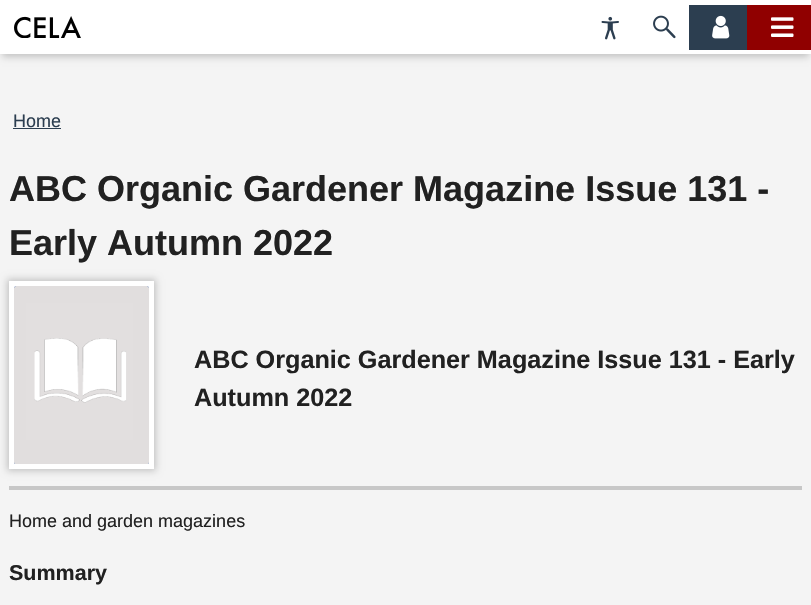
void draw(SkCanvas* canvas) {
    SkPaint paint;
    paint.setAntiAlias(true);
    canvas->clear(0xFFF4F4F4);
    paint.setColor(0x33000000);
    paint.setMaskFilter(SkMaskFilter::MakeBlur(kNormal_SkBlurStyle, 3.5f));
    canvas->drawRect(SkRect::MakeXYWH(2, 7, 807, 50), paint);
    paint.setMaskFilter(nullptr);
    paint.setColor(0xFFFFFFFF);
    canvas->drawRect(SkRect::MakeXYWH(0, 0, 811, 54), paint);
    canvas->drawImageRect(SkImages::DeferredFromEncodedData(SkData::MakeFromFileName("img1.png")), SkRect::MakeXYWH(14, 16, 67, 22), SkSamplingOptions());
    canvas->drawImageRect(SkImages::DeferredFromEncodedData(SkData::MakeFromFileName("img2.png")), SkRect::MakeXYWH(601, 16, 18, 24), SkSamplingOptions());
    canvas->drawImageRect(SkImages::DeferredFromEncodedData(SkData::MakeFromFileName("img3.png")), SkRect::MakeXYWH(653, 15, 23, 24), SkSamplingOptions());
    paint.setColor(0xFF2C3E50);
    canvas->drawRect(SkRect::MakeXYWH(689, 5, 58, 45), paint);
    canvas->drawImageRect(SkImages::DeferredFromEncodedData(SkData::MakeFromFileName("img4.png")), SkRect::MakeXYWH(712, 15, 18, 24), SkSamplingOptions());
    paint.setColor(0xFF900000);
    canvas->drawRect(SkRect::MakeXYWH(747, 5, 64, 45), paint);
    canvas->drawImageRect(SkImages::DeferredFromEncodedData(SkData::MakeFromFileName("img5.png")), SkRect::MakeXYWH(771, 17, 23, 20), SkSamplingOptions());
    SkFont font1(fontMgr->matchFamilyStyle("Liberation Sans", SkFontStyle::Normal()), 18);
    font1.setSubpixel(true);
    paint.setColor(0xFF2C3E50);
    canvas->drawString("Home", 13, 127, font1, paint);
    canvas->drawRect(SkRect::MakeXYWH(13, 128, 48, 1), paint);
    SkFont font2(fontMgr->matchFamilyStyle("Liberation Sans", SkFontStyle::Bold()), 36);
    font2.setSubpixel(true);
    paint.setColor(0xFF212121);
    canvas->drawString("ABC Organic Gardener Magazine Issue 131 -", 9, 201, font2, paint);
    canvas->drawString("Early Autumn 2022", 9, 255, font2, paint);
    paint.setColor(0x33000000);
    paint.setMaskFilter(SkMaskFilter::MakeBlur(kNormal_SkBlurStyle, 3.5f));
    canvas->drawRect(SkRect::MakeXYWH(7, 279, 149, 192), paint);
    paint.setMaskFilter(nullptr);
    paint.setStyle(SkPaint::kStroke_Style);
    paint.setStrokeWidth(5);
    paint.setColor(0xFFFFFFFF);
    canvas->drawRect(SkRect::MakeXYWH(11.5f, 283.5f, 140, 183), paint);
    canvas->drawImageRect(SkImages::DeferredFromEncodedData(SkData::MakeFromFileName("img6.png")), SkRect::MakeXYWH(14, 286, 135, 178), SkSamplingOptions());
    SkFont font3(fontMgr->matchFamilyStyle("Liberation Sans", SkFontStyle::Bold()), 25.2f);
    font3.setSubpixel(true);
    paint.setStyle(SkPaint::kFill_Style);
    paint.setColor(0xFF212121);
    canvas->drawString("ABC Organic Gardener Magazine Issue 131 - Early", 194, 368, font3, paint);
    canvas->drawString("Autumn 2022", 194, 406, font3, paint);
    paint.setColor(0xFFC7C7C7);
    canvas->drawRect(SkRect::MakeXYWH(9, 486, 793, 4), paint);
    paint.setColor(0xFF212121);
    canvas->drawString("Home and garden magazines", 9, 527, font1, paint);
    SkFont font4(fontMgr->matchFamilyStyle("Liberation Sans", SkFontStyle::Bold()), 21.5f);
    font4.setSubpixel(true);
    canvas->drawString("Summary", 9, 580, font4, paint);
}
